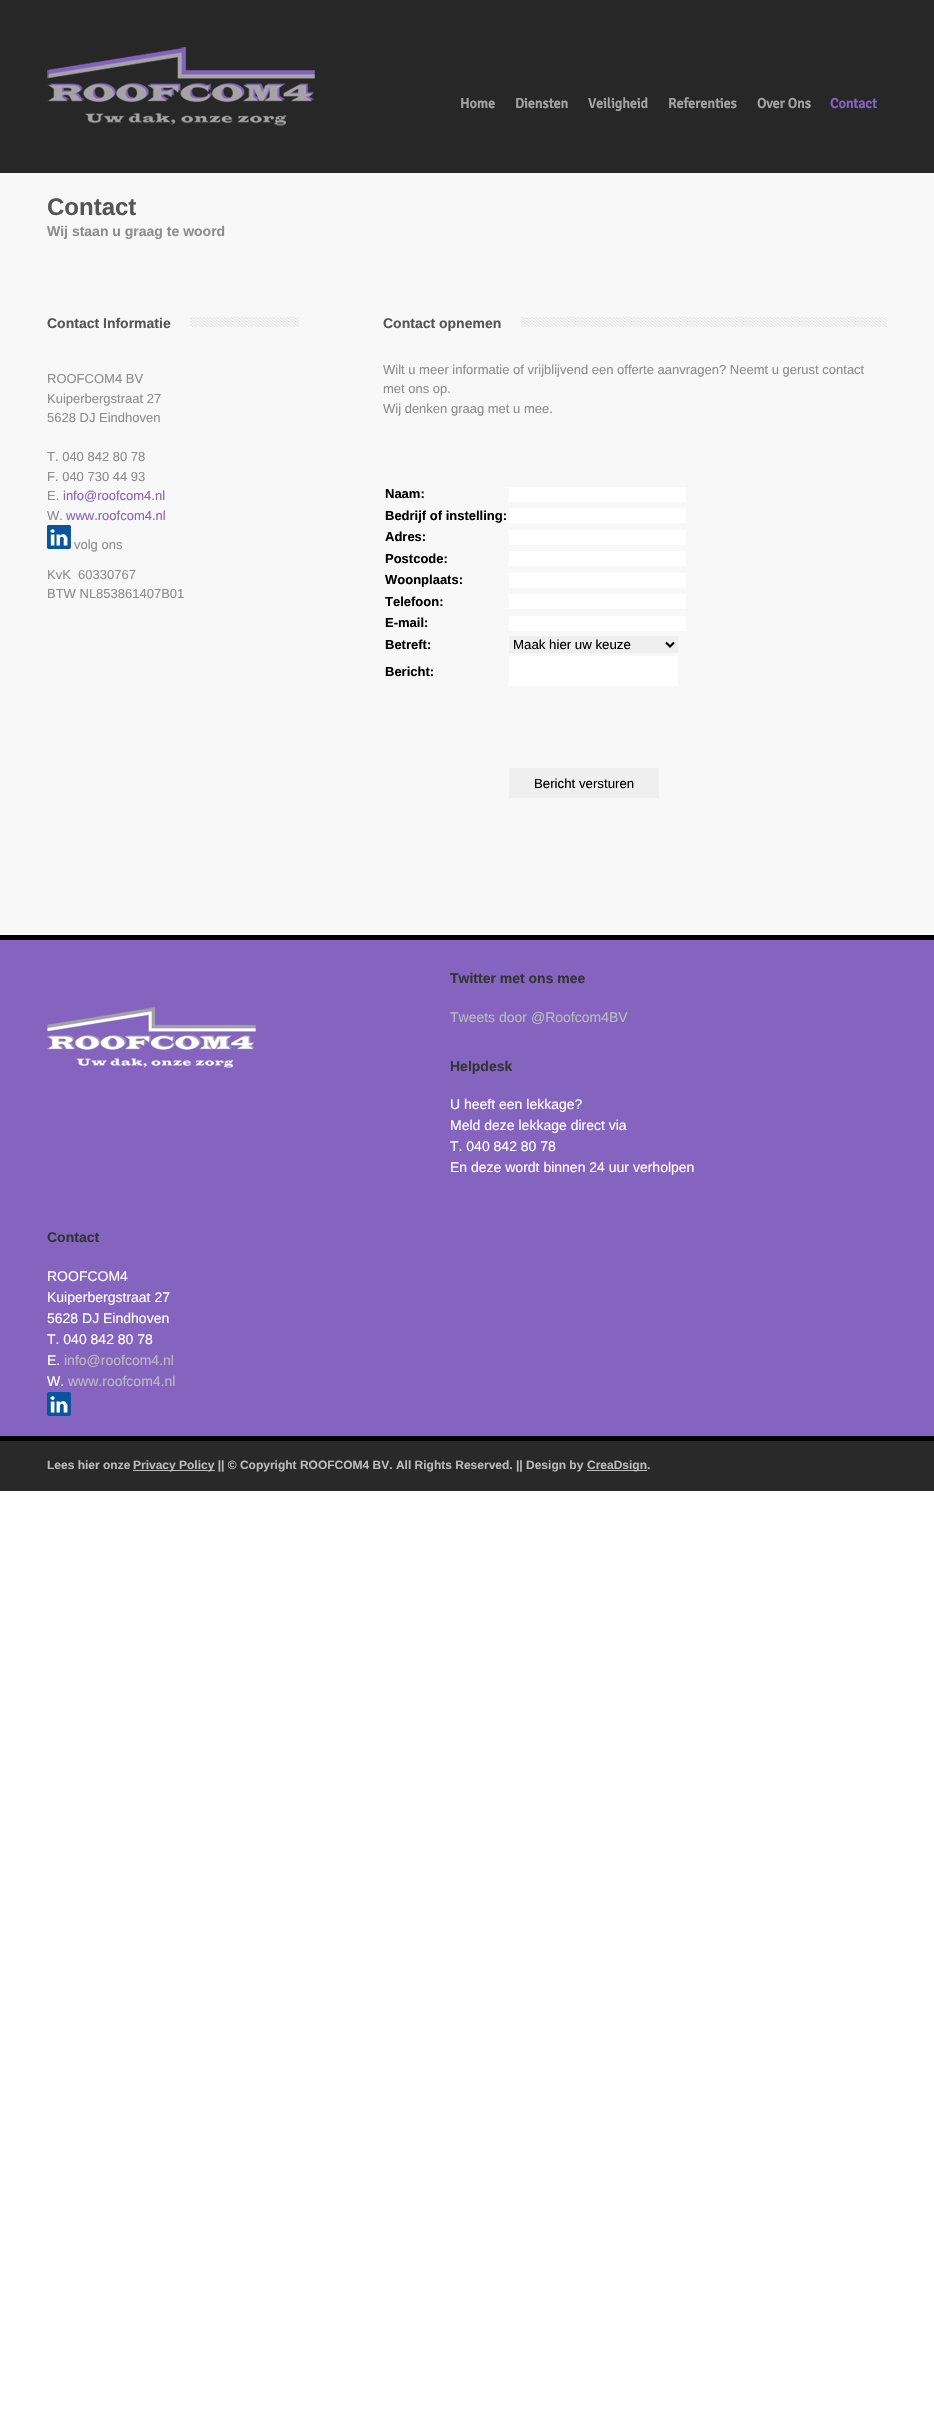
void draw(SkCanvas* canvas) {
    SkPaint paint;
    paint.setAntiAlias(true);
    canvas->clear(0xFFFFFFFF);
    paint.setColor(0xFFF8F8F8);
    canvas->drawRect(SkRect::MakeXYWH(0, 173, 934, 762), paint);
    paint.setColor(0xFF272727);
    canvas->drawRect(SkRect::MakeXYWH(0, 0, 934, 173), paint);
    canvas->drawImageRect(SkImages::DeferredFromEncodedData(SkData::MakeFromFileName("img1.png")), SkRect::MakeXYWH(47, 47, 268, 79), SkSamplingOptions());
    SkFont font1(fontMgr->matchFamilyStyle("Signika", SkFontStyle::Bold()), 14);
    font1.setSubpixel(true);
    paint.setColor(0xFFA5A4A5);
    canvas->drawString("Home", 460, 108, font1, paint);
    canvas->drawString("Diensten", 515, 108, font1, paint);
    canvas->drawString("Veiligheid", 588, 108, font1, paint);
    canvas->drawString("Referenties", 668, 108, font1, paint);
    canvas->drawString("Over Ons", 757, 108, font1, paint);
    paint.setColor(0xFF8564BF);
    canvas->drawString("Contact", 830, 108, font1, paint);
    SkFont font2(fontMgr->matchFamilyStyle("Liberation Sans", SkFontStyle::Bold()), 24);
    font2.setSubpixel(true);
    paint.setColor(0xFF555555);
    canvas->drawString("Contact", 47, 215, font2, paint);
    SkFont font3(fontMgr->matchFamilyStyle("Liberation Sans", SkFontStyle::Bold()), 14);
    font3.setSubpixel(true);
    paint.setColor(0xFF8E8D8D);
    canvas->drawString("Wij staan u graag te woord", 47, 236, font3, paint);
    canvas->drawImageRect(SkImages::DeferredFromEncodedData(SkData::MakeFromFileName("img2.png")), SkRect::MakeXYWH(190, 317, 109, 10), SkSamplingOptions());
    paint.setColor(0xFF555555);
    canvas->drawString("Contact Informatie", 47, 328, font3, paint);
    SkFont font4(fontMgr->matchFamilyStyle("Liberation Sans", SkFontStyle::Normal()), 13);
    font4.setSubpixel(true);
    paint.setColor(0xFF8E8D8D);
    canvas->drawString("ROOFCOM4 BV", 47, 383, font4, paint);
    canvas->drawString("Kuiperbergstraat 27", 47, 403, font4, paint);
    canvas->drawString("5628 DJ Eindhoven", 47, 422, font4, paint);
    canvas->drawString("T. 040 842 80 78", 47, 461, font4, paint);
    canvas->drawString("F. 040 730 44 93", 47, 481, font4, paint);
    canvas->drawString("E.", 47, 500, font4, paint);
    paint.setColor(0xFF8564BF);
    canvas->drawString("info@roofcom4.nl", 63, 500, font4, paint);
    paint.setColor(0xFF8E8D8D);
    canvas->drawString("W.", 47, 520, font4, paint);
    paint.setColor(0xFF8564BF);
    canvas->drawString("www.roofcom4.nl", 66, 520, font4, paint);
    canvas->drawImageRect(SkImages::DeferredFromEncodedData(SkData::MakeFromFileName("img3.png")), SkRect::MakeXYWH(47, 525, 24, 24), SkSamplingOptions());
    paint.setColor(0xFF8E8D8D);
    canvas->drawString("volg ons", 74, 549, font4, paint);
    canvas->drawString("KvK  60330767", 47, 579, font4, paint);
    canvas->drawString("BTW NL853861407B01", 47, 598, font4, paint);
    canvas->drawImageRect(SkImages::DeferredFromEncodedData(SkData::MakeFromFileName("img4.png")), SkRect::MakeXYWH(521, 317, 366, 10), SkSamplingOptions());
    paint.setColor(0xFF555555);
    canvas->drawString("Contact opnemen", 383, 328, font3, paint);
    paint.setColor(0xFF8E8D8D);
    canvas->drawString("Wilt u meer informatie of vrijblijvend een offerte aanvragen? Neemt u gerust contact", 383, 374, font4, paint);
    canvas->drawString("met ons op.", 383, 393, font4, paint);
    canvas->drawString("Wij denken graag met u mee.", 383, 413, font4, paint);
    SkFont font5(fontMgr->matchFamilyStyle("Liberation Sans", SkFontStyle::Bold()), 13);
    font5.setSubpixel(true);
    paint.setColor(0xFF000000);
    canvas->drawString("Naam:", 385, 498, font5, paint);
    paint.setColor(0xFFFFFFFF);
    canvas->drawRect(SkRect::MakeXYWH(509, 487, 177, 15), paint);
    paint.setColor(0xFF000000);
    canvas->drawString("Bedrijf of instelling:", 385, 520, font5, paint);
    paint.setColor(0xFFFFFFFF);
    canvas->drawRect(SkRect::MakeXYWH(509, 508, 177, 15), paint);
    paint.setColor(0xFF000000);
    canvas->drawString("Adres:", 385, 541, font5, paint);
    paint.setColor(0xFFFFFFFF);
    canvas->drawRect(SkRect::MakeXYWH(509, 530, 177, 15), paint);
    paint.setColor(0xFF000000);
    canvas->drawString("Postcode:", 385, 563, font5, paint);
    paint.setColor(0xFFFFFFFF);
    canvas->drawRect(SkRect::MakeXYWH(509, 551, 177, 15), paint);
    paint.setColor(0xFF000000);
    canvas->drawString("Woonplaats:", 385, 584, font5, paint);
    paint.setColor(0xFFFFFFFF);
    canvas->drawRect(SkRect::MakeXYWH(509, 573, 177, 15), paint);
    paint.setColor(0xFF000000);
    canvas->drawString("Telefoon:", 385, 606, font5, paint);
    paint.setColor(0xFFFFFFFF);
    canvas->drawRect(SkRect::MakeXYWH(509, 594, 177, 15), paint);
    paint.setColor(0xFF000000);
    canvas->drawString("E-mail:", 385, 627, font5, paint);
    paint.setColor(0xFFFFFFFF);
    canvas->drawRect(SkRect::MakeXYWH(509, 616, 177, 15), paint);
    paint.setColor(0xFF000000);
    canvas->drawString("Betreft:", 385, 649, font5, paint);
    paint.setColor(0xFFEFEFEF);
    canvas->drawRect(SkRect::MakeXYWH(509, 636, 169, 17), paint);
    paint.setStyle(SkPaint::kStroke_Style);
    paint.setStrokeWidth(2);
    paint.setColor(0xFF000000);
    canvas->drawPath(SkPathBuilder().moveTo(666, 642.5f).lineTo(670, 646.5f).lineTo(674, 642.5f).detach(), paint);
    SkFont font6(fontMgr->matchFamilyStyle("Liberation Sans", SkFontStyle::Normal()), 13.25f);
    font6.setSubpixel(true);
    paint.setStyle(SkPaint::kFill_Style);
    canvas->drawString("Maak hier uw keuze", 513, 649, font6, paint);
    canvas->drawString("Bericht:", 385, 676, font5, paint);
    paint.setColor(0xFFFFFFFF);
    canvas->drawRect(SkRect::MakeXYWH(509, 656, 169, 30), paint);
    paint.setColor(0xFFEFEFEF);
    canvas->drawRect(SkRect::MakeXYWH(509, 768, 150, 30), paint);
    paint.setColor(0xFF000000);
    canvas->drawString("Bericht versturen", 534, 788, font6, paint);
    paint.setColor(0xFF8564BF);
    canvas->drawRect(SkRect::MakeXYWH(0, 940, 934, 496), paint);
    paint.setColor(0xFF000000);
    canvas->drawRect(SkRect::MakeXYWH(0, 935, 934, 5), paint);
    canvas->drawRect(SkRect::MakeXYWH(0, 1436, 934, 5), paint);
    paint.setColor(0xFF333333);
    canvas->drawString("Twitter met ons mee", 450, 983, font3, paint);
    SkFont font7(fontMgr->matchFamilyStyle("Liberation Sans", SkFontStyle::Normal()), 14);
    font7.setSubpixel(true);
    paint.setColor(0xFFBCBBBC);
    canvas->drawString("Tweets door @Roofcom4BV", 450, 1022, font7, paint);
    canvas->drawImageRect(SkImages::DeferredFromEncodedData(SkData::MakeFromFileName("img5.png")), SkRect::MakeXYWH(47, 1007, 209, 61), SkSamplingOptions());
    paint.setColor(0xFF333333);
    canvas->drawString("Helpdesk", 450, 1071, font3, paint);
    paint.setColor(0xFFFFFFFF);
    canvas->drawString("U heeft een lekkage?", 450, 1109, font7, paint);
    canvas->drawString("Meld deze lekkage direct via", 450, 1130, font7, paint);
    canvas->drawString("T. 040 842 80 78", 450, 1151, font7, paint);
    canvas->drawString("En deze wordt binnen 24 uur verholpen", 450, 1172, font7, paint);
    paint.setColor(0xFF333333);
    canvas->drawString("Contact", 47, 1242, font3, paint);
    paint.setColor(0xFFFFFFFF);
    canvas->drawString("ROOFCOM4", 47, 1281, font7, paint);
    canvas->drawString("Kuiperbergstraat 27", 47, 1302, font7, paint);
    canvas->drawString("5628 DJ Eindhoven", 47, 1323, font7, paint);
    canvas->drawString("T. 040 842 80 78", 47, 1344, font7, paint);
    canvas->drawString("E.", 47, 1365, font7, paint);
    paint.setColor(0xFFBCBBBC);
    canvas->drawString("info@roofcom4.nl", 64, 1365, font7, paint);
    paint.setColor(0xFFFFFFFF);
    canvas->drawString("W.", 47, 1386, font7, paint);
    paint.setColor(0xFFBCBBBC);
    canvas->drawString("www.roofcom4.nl", 68, 1386, font7, paint);
    canvas->drawImageRect(SkImages::DeferredFromEncodedData(SkData::MakeFromFileName("img6.png")), SkRect::MakeXYWH(47, 1392, 24, 24), SkSamplingOptions());
    paint.setColor(0xFF292929);
    canvas->drawRect(SkRect::MakeXYWH(0, 1441, 934, 50), paint);
    SkFont font8(fontMgr->matchFamilyStyle("Liberation Sans", SkFontStyle::Bold()), 12);
    font8.setSubpixel(true);
    paint.setColor(0xFFBCBBBC);
    canvas->drawString("Lees hier onze", 47, 1469, font8, paint);
    canvas->drawRect(SkRect::MakeXYWH(133, 1470, 82, 1), paint);
    canvas->drawString("Privacy Policy || © Copyright ROOFCOM4 BV. All Rights Reserved. || Design by", 133, 1469, font8, paint);
    canvas->drawRect(SkRect::MakeXYWH(587, 1470, 60, 1), paint);
    canvas->drawString("CreaDsign.", 587, 1469, font8, paint);
}
